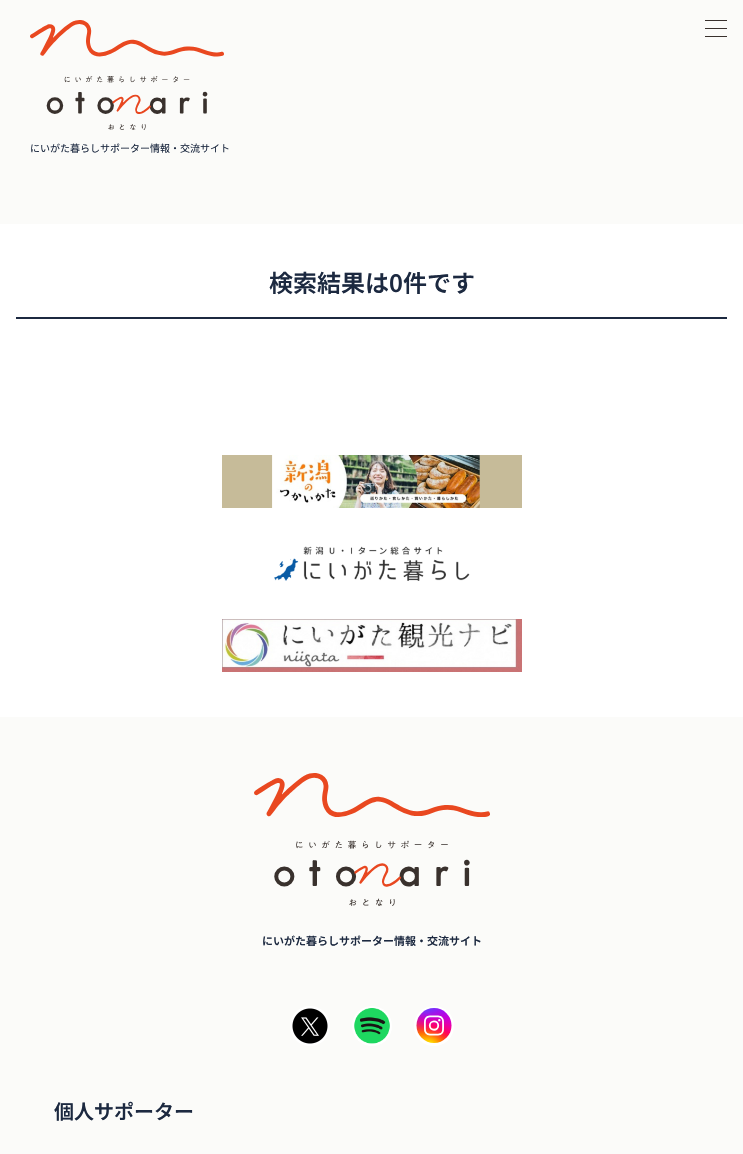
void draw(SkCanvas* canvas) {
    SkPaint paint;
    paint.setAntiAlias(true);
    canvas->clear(0xFFFFFFFF);
    paint.setColor(0xFFFBFBF9);
    canvas->drawRect(SkRect::MakeXYWH(0, 0, 743, 224), paint);
    paint.setColor(0xFF39312D);
    canvas->drawRect(SkRect::MakeXYWH(705, 20, 22, 1), paint);
    canvas->drawRect(SkRect::MakeXYWH(705, 28, 22, 1), paint);
    canvas->drawRect(SkRect::MakeXYWH(705, 36, 22, 1), paint);
    canvas->drawImageRect(SkImages::DeferredFromEncodedData(SkData::MakeFromFileName("img1.png")), SkRect::MakeXYWH(30, 20, 194, 110), SkSamplingOptions());
    SkFont font1(fontMgr->matchFamilyStyle("Noto Sans JP", SkFontStyle::Normal()), 10);
    font1.setSubpixel(true);
    paint.setColor(0xFF1C2940);
    canvas->drawString("にいがた暮らしサポーター情報・交流サイト", 30, 152, font1, paint);
    canvas->drawRect(SkRect::MakeXYWH(16, 317, 711, 2), paint);
    SkFont font2(fontMgr->matchFamilyStyle("Noto Sans JP", SkFontStyle(600, SkFontStyle::kNormal_Width, SkFontStyle::kUpright_Slant)), 24);
    font2.setSubpixel(true);
    canvas->drawString("検索結果は0件です", 269, 292, font2, paint);
    canvas->drawImageRect(SkImages::DeferredFromEncodedData(SkData::MakeFromFileName("img2.png")), SkRect::MakeXYWH(222, 455, 300, 53), SkSamplingOptions());
    canvas->drawImageRect(SkImages::DeferredFromEncodedData(SkData::MakeFromFileName("img3.png")), SkRect::MakeXYWH(274, 546, 196, 35), SkSamplingOptions());
    canvas->drawImageRect(SkImages::DeferredFromEncodedData(SkData::MakeFromFileName("img4.png")), SkRect::MakeXYWH(222, 619, 300, 53), SkSamplingOptions());
    paint.setColor(0xFFFBFBF9);
    canvas->drawRect(SkRect::MakeXYWH(0, 717, 743, 437), paint);
    canvas->drawImageRect(SkImages::DeferredFromEncodedData(SkData::MakeFromFileName("img5.png")), SkRect::MakeXYWH(254, 773, 236, 133), SkSamplingOptions());
    SkFont font3(fontMgr->matchFamilyStyle("Noto Sans JP", SkFontStyle(600, SkFontStyle::kNormal_Width, SkFontStyle::kUpright_Slant)), 11);
    font3.setSubpixel(true);
    paint.setColor(0xFF1C2940);
    canvas->drawString("にいがた暮らしサポーター情報・交流サイト", 262, 945, font3, paint);
    canvas->drawImageRect(SkImages::DeferredFromEncodedData(SkData::MakeFromFileName("img6.png")), SkRect::MakeXYWH(290, 1006, 40, 40), SkSamplingOptions());
    canvas->drawImageRect(SkImages::DeferredFromEncodedData(SkData::MakeFromFileName("img7.png")), SkRect::MakeXYWH(352, 1006, 40, 40), SkSamplingOptions());
    canvas->drawImageRect(SkImages::DeferredFromEncodedData(SkData::MakeFromFileName("img8.png")), SkRect::MakeXYWH(414, 1006, 40, 40), SkSamplingOptions());
    SkFont font4(fontMgr->matchFamilyStyle("Noto Sans JP", SkFontStyle(600, SkFontStyle::kNormal_Width, SkFontStyle::kUpright_Slant)), 20);
    font4.setSubpixel(true);
    canvas->drawString("個人サポーター", 54, 1119, font4, paint);
}
